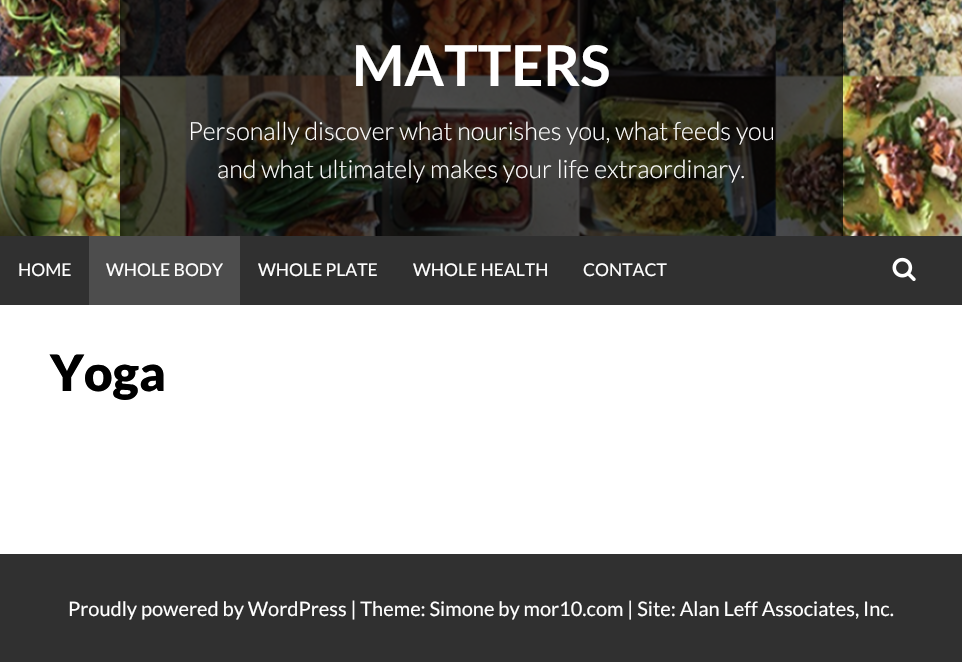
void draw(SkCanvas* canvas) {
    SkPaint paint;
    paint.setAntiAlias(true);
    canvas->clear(0xFFFFFFFF);
    canvas->drawImageRect(SkImages::DeferredFromEncodedData(SkData::MakeFromFileName("img1.png")), SkRect::MakeXYWH(576, 0, 6, 236), SkSamplingOptions());
    canvas->drawImageRect(SkImages::DeferredFromEncodedData(SkData::MakeFromFileName("img2.png")), SkRect::MakeXYWH(0, 0, 962, 236), SkSamplingOptions());
    paint.setColor(0xB3000000);
    canvas->drawRect(SkRect::MakeXYWH(120, 0, 723, 236), paint);
    SkFont font1(fontMgr->matchFamilyStyle("Lato", SkFontStyle::Bold()), 56.25f);
    font1.setSubpixel(true);
    paint.setColor(0xFFFFFFFF);
    canvas->drawString("MATTERS", 352, 86, font1, paint);
    SkFont font2(fontMgr->matchFamilyStyle("Lato", SkFontStyle(300, SkFontStyle::kNormal_Width, SkFontStyle::kUpright_Slant)), 25);
    font2.setSubpixel(true);
    canvas->drawString("Personally discover what nourishes you, what feeds you", 188, 140, font2, paint);
    canvas->drawString("and what ultimately makes your life extraordinary.", 217, 178, font2, paint);
    paint.setColor(0xFF303030);
    canvas->drawRect(SkRect::MakeXYWH(0, 236, 962, 69), paint);
    SkFont font3(fontMgr->matchFamilyStyle("Lato", SkFontStyle::Normal()), 17.5f);
    font3.setSubpixel(true);
    paint.setColor(0xFFFFFFFF);
    canvas->drawString("HOME", 18, 276, font3, paint);
    paint.setColor(0xFF4D4D4D);
    canvas->drawRect(SkRect::MakeXYWH(89, 236, 151, 69), paint);
    paint.setColor(0xFFFFFFFF);
    canvas->drawString("WHOLE BODY", 106, 276, font3, paint);
    canvas->drawString("WHOLE PLATE", 258, 276, font3, paint);
    canvas->drawString("WHOLE HEALTH", 413, 276, font3, paint);
    canvas->drawString("CONTACT", 583, 276, font3, paint);
    canvas->drawImageRect(SkImages::DeferredFromEncodedData(SkData::MakeFromFileName("img3.png")), SkRect::MakeXYWH(892, 257, 24, 24), SkSamplingOptions());
    SkFont font4(fontMgr->matchFamilyStyle("Lato", SkFontStyle(900, SkFontStyle::kNormal_Width, SkFontStyle::kUpright_Slant)), 50);
    font4.setSubpixel(true);
    paint.setColor(0xFF000000);
    canvas->drawString("Yoga", 50, 391, font4, paint);
    paint.setColor(0xFF303030);
    canvas->drawRect(SkRect::MakeXYWH(0, 554, 962, 108), paint);
    SkFont font5(fontMgr->matchFamilyStyle("Lato", SkFontStyle::Normal()), 20);
    font5.setSubpixel(true);
    paint.setColor(0xFFFFFFFF);
    canvas->drawString("Proudly powered by WordPress | Theme: Simone by mor10.com | Site: Alan Leff Associates, Inc.", 68, 616, font5, paint);
}
